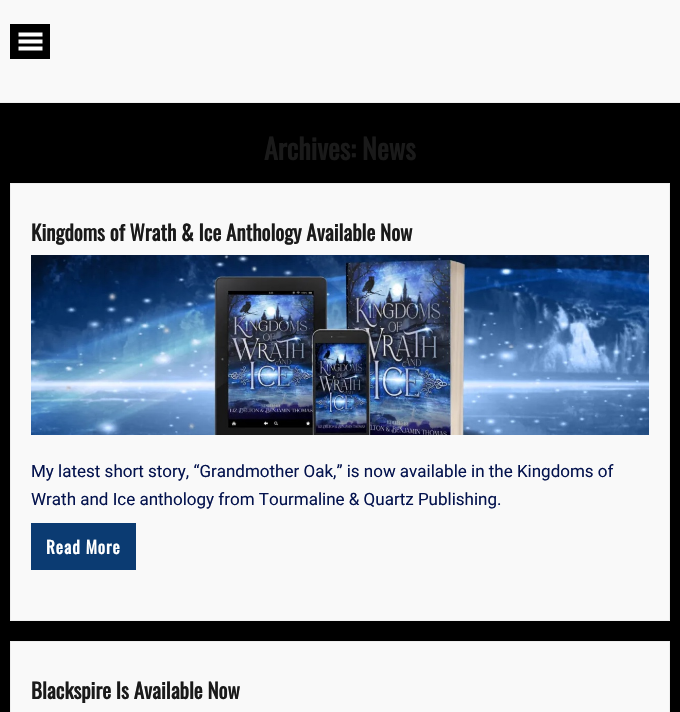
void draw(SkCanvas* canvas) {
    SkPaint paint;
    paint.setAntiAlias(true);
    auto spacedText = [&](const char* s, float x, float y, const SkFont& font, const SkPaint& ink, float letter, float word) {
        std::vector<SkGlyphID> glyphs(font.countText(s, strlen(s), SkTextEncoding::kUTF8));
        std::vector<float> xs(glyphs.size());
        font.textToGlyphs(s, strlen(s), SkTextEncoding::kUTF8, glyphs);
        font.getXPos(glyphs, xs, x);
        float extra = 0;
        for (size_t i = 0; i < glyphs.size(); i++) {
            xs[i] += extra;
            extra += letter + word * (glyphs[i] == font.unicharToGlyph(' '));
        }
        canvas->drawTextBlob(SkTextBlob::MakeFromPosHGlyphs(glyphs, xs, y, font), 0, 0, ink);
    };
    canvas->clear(0xFF000000);
    paint.setColor(0xFFF9F9F9);
    canvas->drawRect(SkRect::MakeXYWH(0, 0, 680, 102), paint);
    paint.setColor(0xFFEEEEEE);
    canvas->drawRect(SkRect::MakeXYWH(0, 102, 680, 1), paint);
    canvas->drawImageRect(SkImages::DeferredFromEncodedData(SkData::MakeFromFileName("img1.png")), SkRect::MakeXYWH(10, 24, 40, 35), SkSamplingOptions());
    SkFont font1(fontMgr->matchFamilyStyle("Oswald", SkFontStyle::Bold()), 28);
    font1.setSubpixel(true);
    paint.setColor(0xFF1A1A1A);
    canvas->drawString("Archives: News", 264, 160, font1, paint);
    paint.setColor(0xFFF9F9F9);
    canvas->drawRect(SkRect::MakeXYWH(10.5f, 183.5f, 659, 437), paint);
    paint.setStyle(SkPaint::kStroke_Style);
    paint.setStrokeWidth(1);
    paint.setColor(0xFFEEEEEE);
    canvas->drawRect(SkRect::MakeXYWH(10.5f, 183.5f, 659, 437), paint);
    SkFont font2(fontMgr->matchFamilyStyle("Oswald", SkFontStyle::Bold()), 21);
    font2.setSubpixel(true);
    paint.setStyle(SkPaint::kFill_Style);
    paint.setColor(0xFF1A1A1A);
    canvas->drawString("Kingdoms of Wrath & Ice Anthology Available Now", 31, 241, font2, paint);
    canvas->drawImageRect(SkImages::DeferredFromEncodedData(SkData::MakeFromFileName("img2.png")), SkRect::MakeXYWH(31, 255, 618, 180), SkSamplingOptions());
    SkFont font3(fontMgr->matchFamilyStyle("Roboto", SkFontStyle::Normal()), 17);
    font3.setSubpixel(true);
    paint.setColor(0xFF04134E);
    canvas->drawString("My latest short story, “Grandmother Oak,” is now available in the Kingdoms of", 31, 477, font3, paint);
    canvas->drawString("Wrath and Ice anthology from Tourmaline & Quartz Publishing.", 31, 505, font3, paint);
    paint.setColor(0xFF0B3B72);
    canvas->drawRect(SkRect::MakeXYWH(31, 523, 105, 47), paint);
    SkFont font4(fontMgr->matchFamilyStyle("Oswald", SkFontStyle::Bold()), 17);
    font4.setSubpixel(true);
    paint.setColor(0xFFFFFFFF);
    spacedText("Read More", 46, 554, font4, paint, 1, 0);
    paint.setColor(0xFFF9F9F9);
    canvas->drawRect(SkRect::MakeXYWH(10.5f, 641.5f, 659, 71), paint);
    paint.setStyle(SkPaint::kStroke_Style);
    paint.setColor(0xFFEEEEEE);
    canvas->drawRect(SkRect::MakeXYWH(10.5f, 641.5f, 659, 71), paint);
    paint.setStyle(SkPaint::kFill_Style);
    paint.setColor(0xFF1A1A1A);
    canvas->drawString("Blackspire Is Available Now", 31, 699, font2, paint);
}
